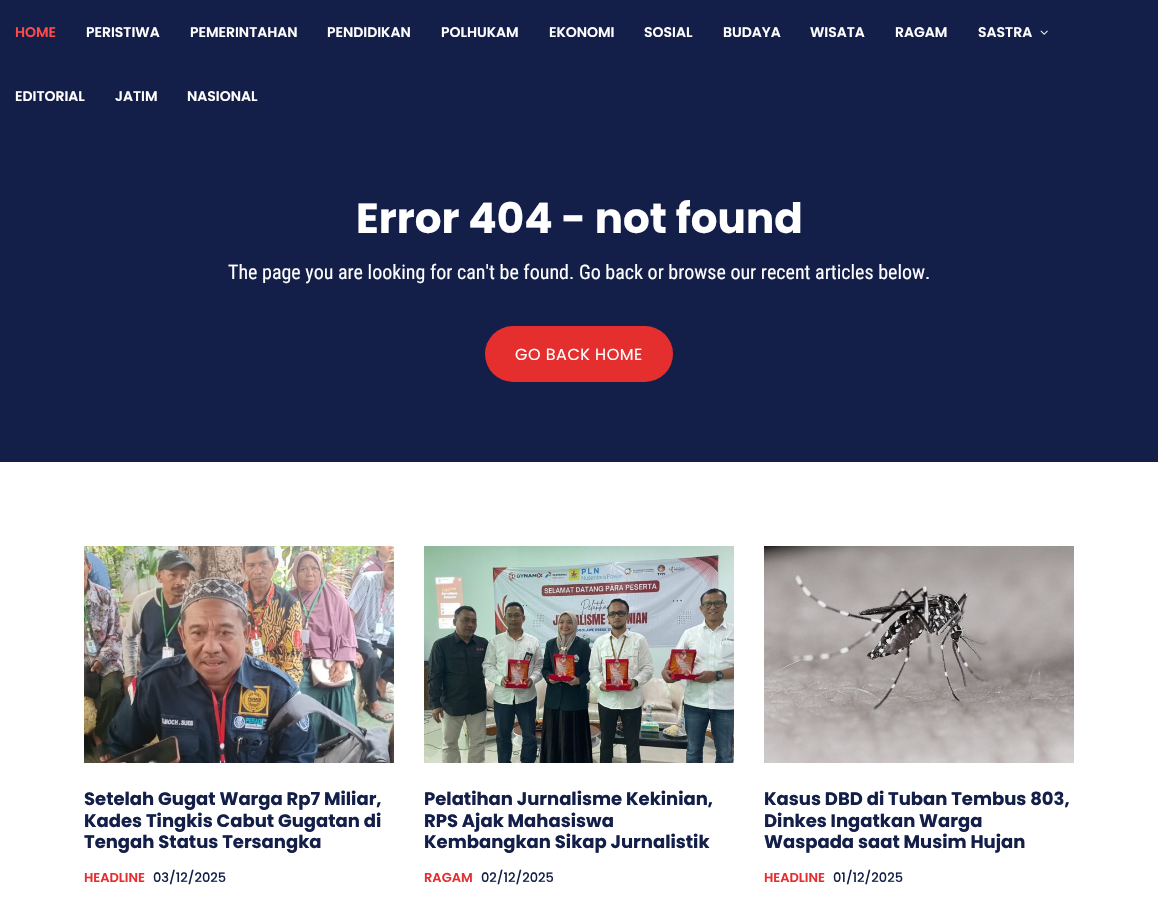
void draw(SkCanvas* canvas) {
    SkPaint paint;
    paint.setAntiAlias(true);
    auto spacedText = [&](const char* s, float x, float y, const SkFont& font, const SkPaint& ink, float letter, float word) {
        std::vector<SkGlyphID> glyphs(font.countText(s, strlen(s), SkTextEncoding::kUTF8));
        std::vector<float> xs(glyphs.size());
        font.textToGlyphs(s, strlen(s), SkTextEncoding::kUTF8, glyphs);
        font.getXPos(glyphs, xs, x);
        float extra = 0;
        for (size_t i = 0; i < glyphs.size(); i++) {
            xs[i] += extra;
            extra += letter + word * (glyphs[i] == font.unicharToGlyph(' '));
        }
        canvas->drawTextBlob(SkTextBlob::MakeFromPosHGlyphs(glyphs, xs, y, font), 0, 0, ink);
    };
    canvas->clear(0xFF131F49);
    SkFont font1(fontMgr->matchFamilyStyle("Poppins", SkFontStyle(600, SkFontStyle::kNormal_Width, SkFontStyle::kUpright_Slant)), 14);
    font1.setSubpixel(true);
    paint.setColor(0xFFFF4A4A);
    canvas->drawString("HOME", 15, 37, font1, paint);
    paint.setColor(0xFFFFFFFF);
    canvas->drawString("PERISTIWA", 86, 37, font1, paint);
    canvas->drawString("PEMERINTAHAN", 190, 37, font1, paint);
    canvas->drawString("PENDIDIKAN", 327, 37, font1, paint);
    canvas->drawString("POLHUKAM", 441, 37, font1, paint);
    canvas->drawString("EKONOMI", 549, 37, font1, paint);
    canvas->drawString("SOSIAL", 644, 37, font1, paint);
    canvas->drawString("BUDAYA", 723, 37, font1, paint);
    canvas->drawString("WISATA", 810, 37, font1, paint);
    canvas->drawString("RAGAM", 895, 37, font1, paint);
    canvas->drawString("SASTRA", 978, 37, font1, paint);
    canvas->drawImageRect(SkImages::DeferredFromEncodedData(SkData::MakeFromFileName("img1.png")), SkRect::MakeXYWH(1040, 30, 8, 5), SkSamplingOptions());
    canvas->drawString("EDITORIAL", 15, 101, font1, paint);
    canvas->drawString("JATIM", 115, 101, font1, paint);
    canvas->drawString("NASIONAL", 187, 101, font1, paint);
    SkFont font2(fontMgr->matchFamilyStyle("Poppins", SkFontStyle::Bold()), 42);
    font2.setSubpixel(true);
    canvas->drawString("Error 404 - not found", 356, 233, font2, paint);
    SkFont font3(fontMgr->matchFamilyStyle("Roboto Condensed", SkFontStyle::Normal()), 20);
    font3.setSubpixel(true);
    canvas->drawString("The page you are looking for can't be found. Go back or browse our recent articles below.", 228, 279, font3, paint);
    paint.setColor(0xFFE52E2E);
    canvas->drawRoundRect(SkRect::MakeXYWH(485, 326, 188, 56), 28, 28, paint);
    SkFont font4(fontMgr->matchFamilyStyle("Poppins", SkFontStyle::Normal()), 16);
    font4.setSubpixel(true);
    paint.setColor(0xFFFFFFFF);
    spacedText("GO BACK HOME", 515, 360, font4, paint, 0.5f, 0);
    canvas->drawRect(SkRect::MakeXYWH(0, 462, 1158, 441), paint);
    canvas->drawImageRect(SkImages::DeferredFromEncodedData(SkData::MakeFromFileName("img2.png")), SkRect::MakeXYWH(84, 546, 310, 217), SkSamplingOptions());
    SkFont font5(fontMgr->matchFamilyStyle("Poppins", SkFontStyle::Bold()), 18);
    font5.setSubpixel(true);
    paint.setColor(0xFF131F49);
    canvas->drawString("Setelah Gugat Warga Rp7 Miliar,", 84, 805, font5, paint);
    canvas->drawString("Kades Tingkis Cabut Gugatan di", 84, 827, font5, paint);
    canvas->drawString("Tengah Status Tersangka", 84, 848, font5, paint);
    SkFont font6(fontMgr->matchFamilyStyle("Poppins", SkFontStyle(600, SkFontStyle::kNormal_Width, SkFontStyle::kUpright_Slant)), 13);
    font6.setSubpixel(true);
    paint.setColor(0xFFE52E2E);
    canvas->drawString("HEADLINE", 84, 882, font6, paint);
    SkFont font7(fontMgr->matchFamilyStyle("Poppins", SkFontStyle(500, SkFontStyle::kNormal_Width, SkFontStyle::kUpright_Slant)), 13);
    font7.setSubpixel(true);
    paint.setColor(0xFF131F49);
    canvas->drawString("03/12/2025", 153, 882, font7, paint);
    canvas->drawImageRect(SkImages::DeferredFromEncodedData(SkData::MakeFromFileName("img3.png")), SkRect::MakeXYWH(424, 546, 310, 217), SkSamplingOptions());
    canvas->drawString("Pelatihan Jurnalisme Kekinian,", 424, 805, font5, paint);
    canvas->drawString("RPS Ajak Mahasiswa", 424, 827, font5, paint);
    canvas->drawString("Kembangkan Sikap Jurnalistik", 424, 848, font5, paint);
    paint.setColor(0xFFE52E2E);
    canvas->drawString("RAGAM", 424, 882, font6, paint);
    paint.setColor(0xFF131F49);
    canvas->drawString("02/12/2025", 481, 882, font7, paint);
    canvas->drawImageRect(SkImages::DeferredFromEncodedData(SkData::MakeFromFileName("img4.png")), SkRect::MakeXYWH(764, 546, 310, 217), SkSamplingOptions());
    canvas->drawString("Kasus DBD di Tuban Tembus 803,", 764, 805, font5, paint);
    canvas->drawString("Dinkes Ingatkan Warga", 764, 827, font5, paint);
    canvas->drawString("Waspada saat Musim Hujan", 764, 848, font5, paint);
    paint.setColor(0xFFE52E2E);
    canvas->drawString("HEADLINE", 764, 882, font6, paint);
    paint.setColor(0xFF131F49);
    canvas->drawString("01/12/2025", 833, 882, font7, paint);
}
